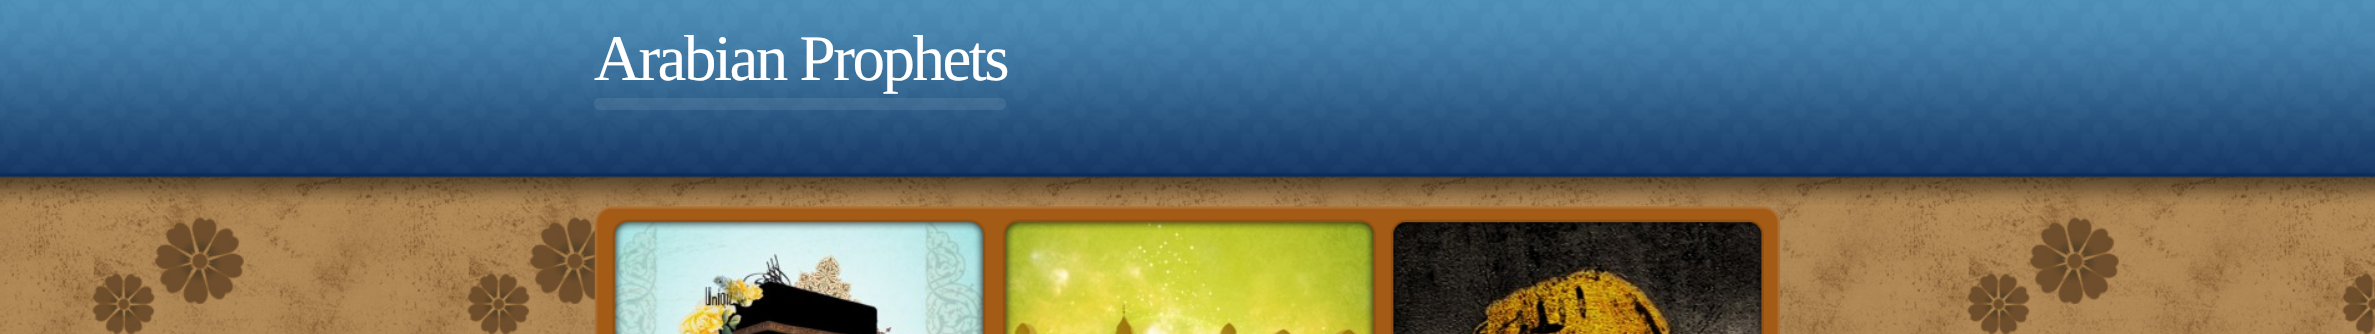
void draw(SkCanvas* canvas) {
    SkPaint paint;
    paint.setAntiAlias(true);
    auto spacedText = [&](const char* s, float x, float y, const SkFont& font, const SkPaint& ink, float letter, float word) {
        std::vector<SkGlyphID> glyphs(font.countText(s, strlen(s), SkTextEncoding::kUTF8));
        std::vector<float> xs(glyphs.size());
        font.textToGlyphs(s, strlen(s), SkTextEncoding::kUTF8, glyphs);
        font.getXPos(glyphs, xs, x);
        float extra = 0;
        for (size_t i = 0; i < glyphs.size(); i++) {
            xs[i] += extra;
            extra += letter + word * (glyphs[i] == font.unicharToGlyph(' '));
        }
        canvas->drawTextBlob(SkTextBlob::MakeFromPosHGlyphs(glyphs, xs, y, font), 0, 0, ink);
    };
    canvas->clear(0xFFFFFFFF);
    canvas->drawImageRect(SkImages::DeferredFromEncodedData(SkData::MakeFromFileName("img1.png")), SkRect::MakeXYWH(0, 176, 2375, 158), SkSamplingOptions());
    canvas->drawImageRect(SkImages::DeferredFromEncodedData(SkData::MakeFromFileName("img2.png")), SkRect::MakeXYWH(0, 0, 2375, 205), SkSamplingOptions());
    SkFont font1(fontMgr->matchFamilyStyle("Liberation Serif", SkFontStyle::Normal()), 65);
    font1.setSubpixel(true);
    paint.setColor(0xFFFFFFFF);
    spacedText("Arabian Prophets", 594, 80, font1, paint, -2.5f, 0);
    canvas->drawImageRect(SkImages::DeferredFromEncodedData(SkData::MakeFromFileName("img3.png")), SkRect::MakeXYWH(594, 98, 412, 12), SkSamplingOptions());
    canvas->drawImageRect(SkImages::DeferredFromEncodedData(SkData::MakeFromFileName("img4.png")), SkRect::MakeXYWH(594, 206, 1186, 128), SkSamplingOptions());
}
